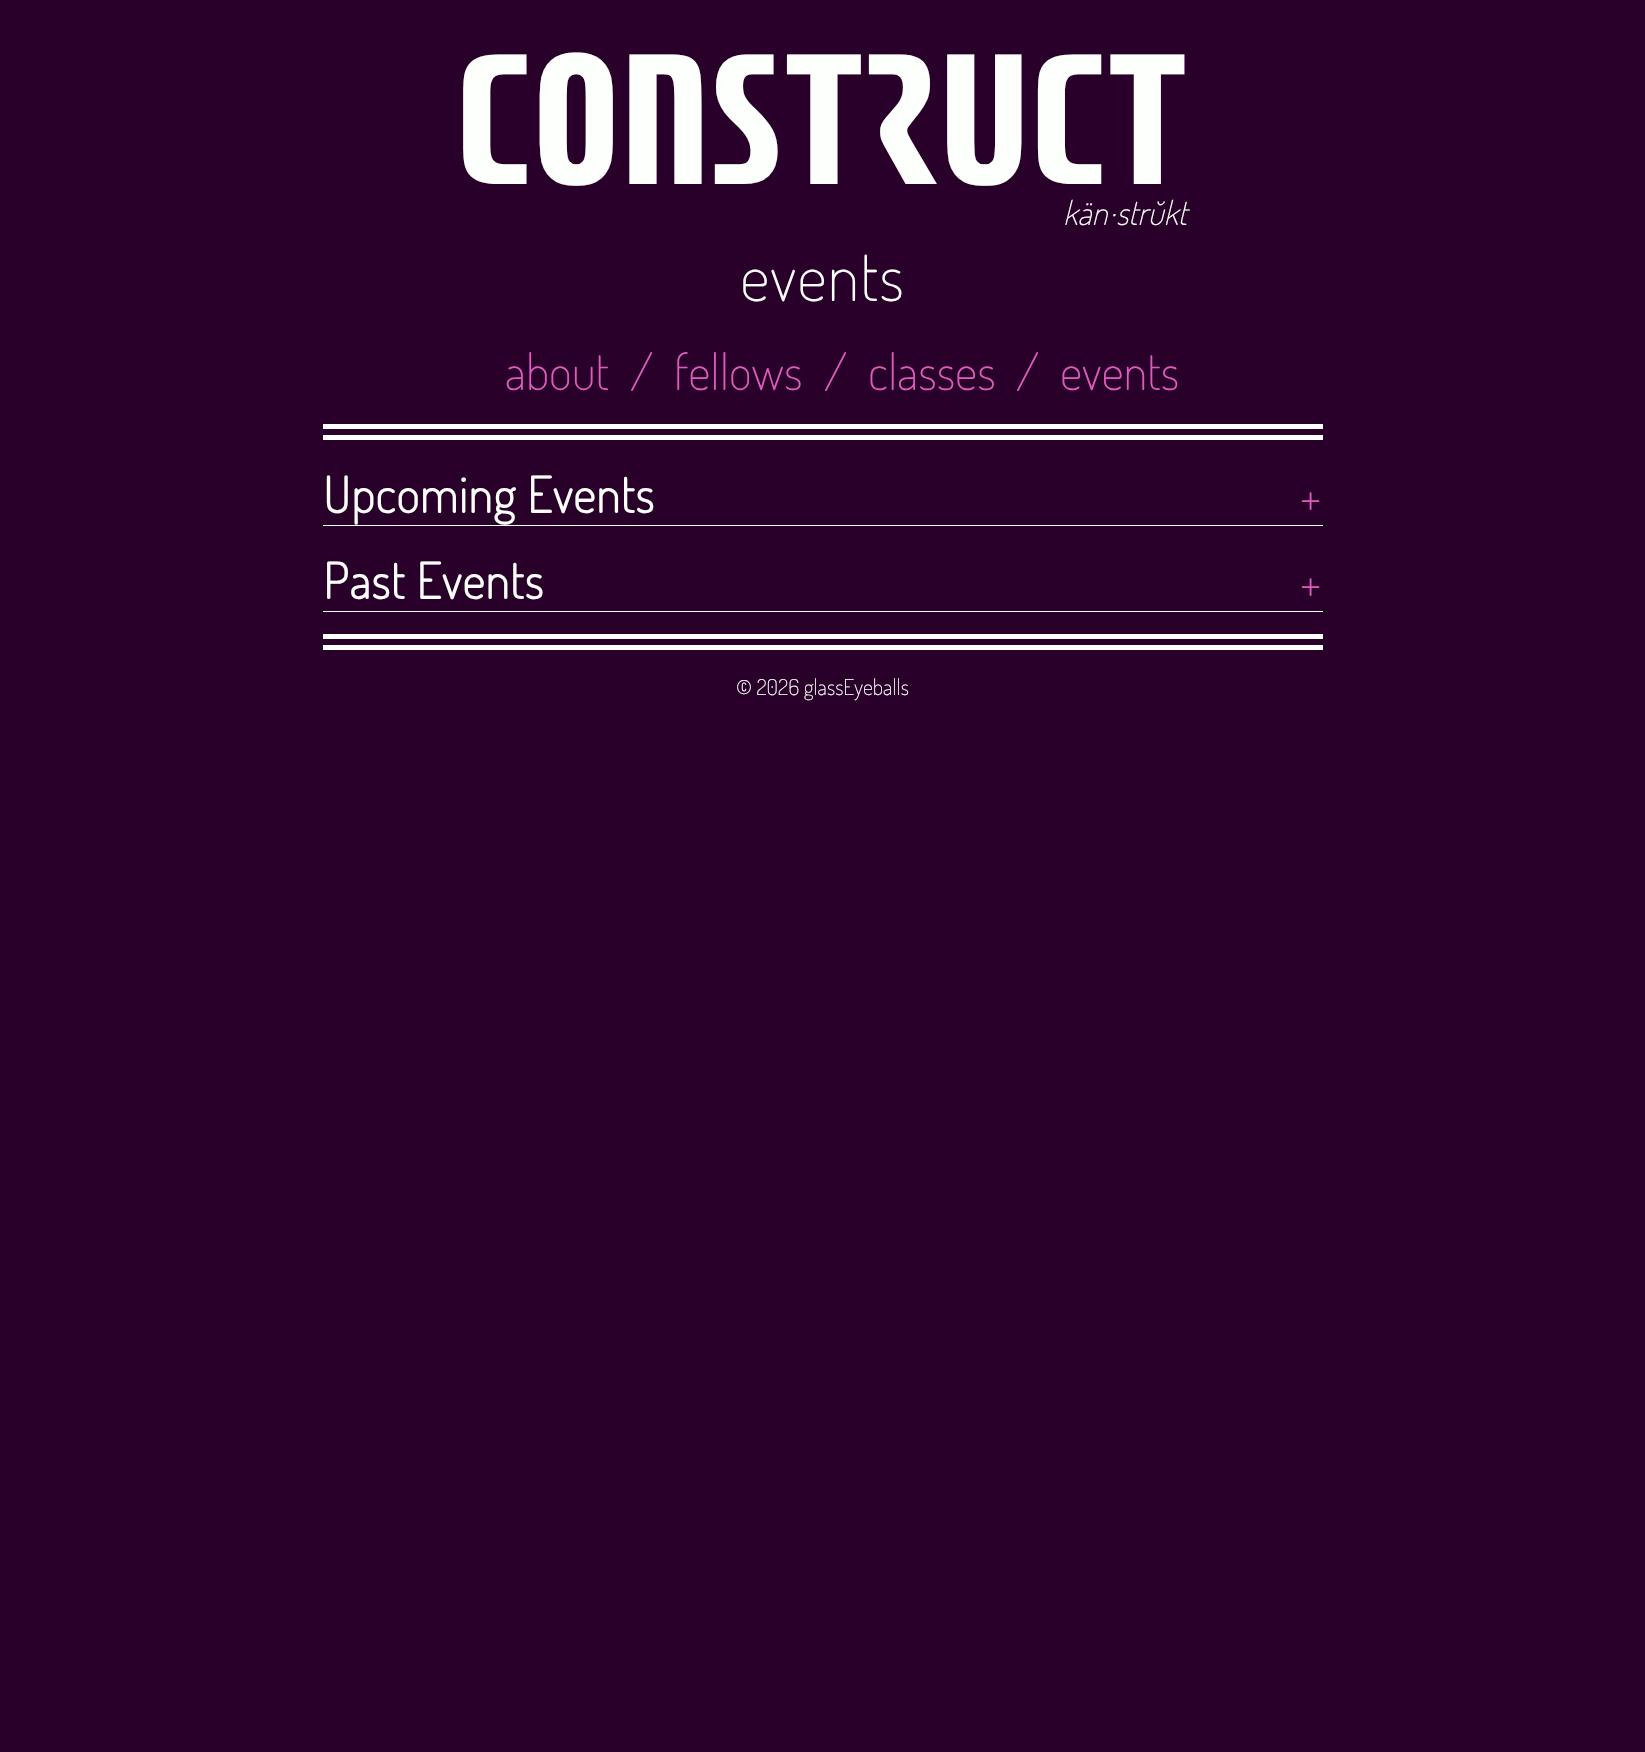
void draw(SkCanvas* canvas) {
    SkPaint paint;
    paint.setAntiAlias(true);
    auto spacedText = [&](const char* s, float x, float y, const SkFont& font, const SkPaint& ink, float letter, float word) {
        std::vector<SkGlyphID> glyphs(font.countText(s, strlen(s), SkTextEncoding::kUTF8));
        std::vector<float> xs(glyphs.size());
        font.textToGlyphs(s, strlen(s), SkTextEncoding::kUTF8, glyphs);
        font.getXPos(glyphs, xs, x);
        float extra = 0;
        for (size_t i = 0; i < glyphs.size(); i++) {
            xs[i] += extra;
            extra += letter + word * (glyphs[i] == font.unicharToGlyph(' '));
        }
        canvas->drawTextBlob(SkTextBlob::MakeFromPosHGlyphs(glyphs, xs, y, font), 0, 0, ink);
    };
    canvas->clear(0xFF290029);
    SkFont font1(fontMgr->matchFamilyStyle("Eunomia", SkFontStyle::Bold()), 180);
    font1.setSubpixel(true);
    paint.setColor(0xFFFCFFFC);
    spacedText("CONSTRUCT", 456, 184, font1, paint, 1, 0);
    SkFont font2(fontMgr->matchFamilyStyle("Dosis", SkFontStyle(200, SkFontStyle::kNormal_Width, SkFontStyle::kItalic_Slant)), 33);
    font2.setSubpixel(true);
    canvas->drawString("kän", 1063, 225, font2, paint);
    canvas->drawString("·", 1109, 225, font2, paint);
    canvas->drawString("strŭkt", 1116, 225, font2, paint);
    canvas->drawRect(SkRect::MakeXYWH(323, 424, 1000, 5), paint);
    canvas->drawRect(SkRect::MakeXYWH(323, 435, 1000, 5), paint);
    SkFont font3(fontMgr->matchFamilyStyle("Dosis", SkFontStyle(200, SkFontStyle::kNormal_Width, SkFontStyle::kUpright_Slant)), 66);
    font3.setSubpixel(true);
    spacedText("events", 740, 301, font3, paint, 1, 0);
    SkFont font4(fontMgr->matchFamilyStyle("Dosis", SkFontStyle(200, SkFontStyle::kNormal_Width, SkFontStyle::kUpright_Slant)), 49.5f);
    font4.setSubpixel(true);
    paint.setColor(0xFFDE5BBD);
    canvas->drawString("about", 505, 390, font4, paint);
    canvas->drawString("/", 630, 390, font4, paint);
    canvas->drawString("fellows", 674, 390, font4, paint);
    canvas->drawString("/", 824, 390, font4, paint);
    canvas->drawString("classes", 868, 390, font4, paint);
    canvas->drawString("/", 1016, 390, font4, paint);
    canvas->drawString("events", 1060, 390, font4, paint);
    paint.setColor(0xFFFCFFFC);
    canvas->drawRect(SkRect::MakeXYWH(323, 525, 1000, 1), paint);
    SkFont font5(fontMgr->matchFamilyStyle("Dosis", SkFontStyle::Bold()), 49.5f);
    font5.setSubpixel(true);
    spacedText("Upcoming Events", 323, 513, font5, paint, 1, 0);
    paint.setColor(0xFFDE5BBD);
    spacedText("+", 1300, 513, font4, paint, 1, 0);
    paint.setColor(0xFFFCFFFC);
    canvas->drawRect(SkRect::MakeXYWH(323, 611, 1000, 1), paint);
    spacedText("Past Events", 323, 599, font5, paint, 1, 0);
    paint.setColor(0xFFDE5BBD);
    spacedText("+", 1300, 599, font4, paint, 1, 0);
    paint.setColor(0xFFFCFFFC);
    canvas->drawRect(SkRect::MakeXYWH(323, 634, 1000, 5), paint);
    canvas->drawRect(SkRect::MakeXYWH(323, 645, 1000, 5), paint);
    SkFont font6(fontMgr->matchFamilyStyle("Dosis", SkFontStyle(200, SkFontStyle::kNormal_Width, SkFontStyle::kUpright_Slant)), 22);
    font6.setSubpixel(true);
    canvas->drawString("© 2026 glassEyeballs", 736, 695, font6, paint);
}
